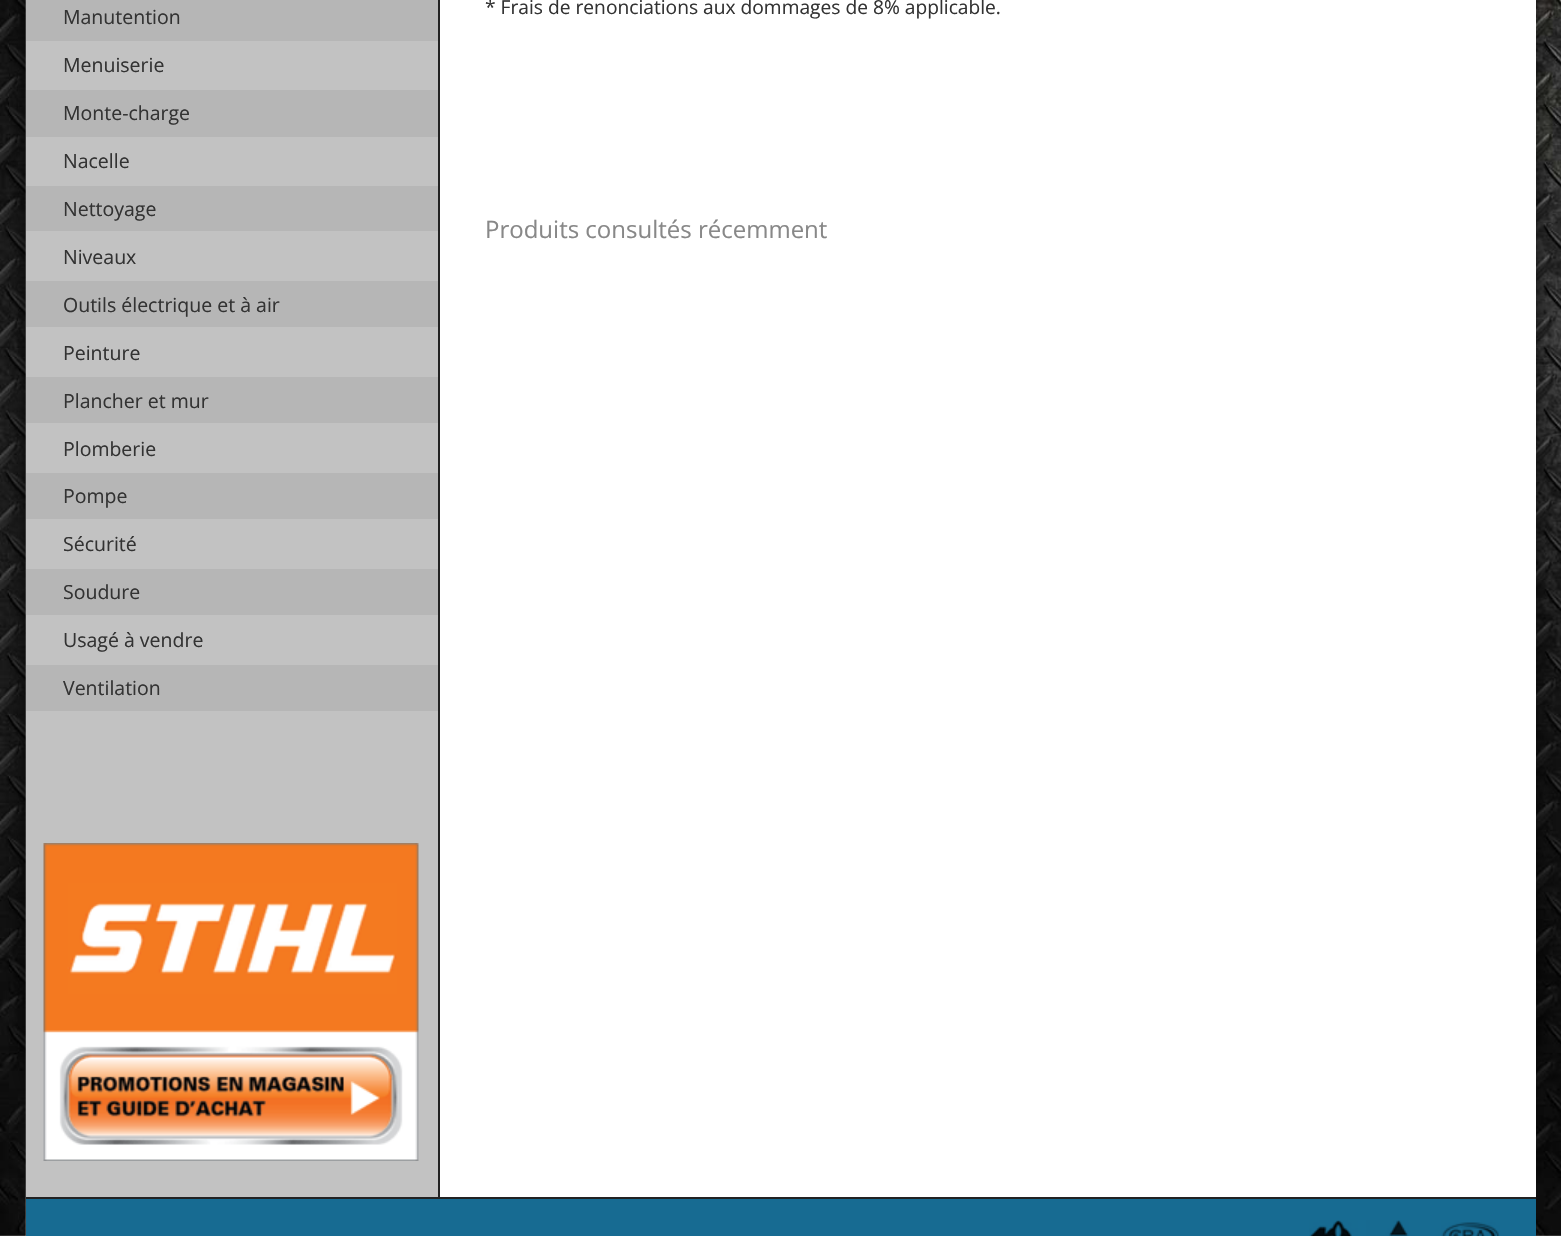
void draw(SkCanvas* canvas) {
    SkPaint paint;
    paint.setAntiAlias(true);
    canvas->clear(0xFFFFFFFF);
    canvas->drawImageRect(SkImages::DeferredFromEncodedData(SkData::MakeFromFileName("img1.png")), SkRect::MakeXYWH(0, 0, 1561, 1236), SkSamplingOptions());
    paint.setColor(0xE6000000);
    paint.setMaskFilter(SkMaskFilter::MakeBlur(kNormal_SkBlurStyle, 11));
    canvas->drawRoundRect(SkRect::MakeXYWH(26, -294, 1510, 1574), 261, 261, paint);
    paint.setMaskFilter(nullptr);
    paint.setColor(0xFFFFFFFF);
    canvas->drawRect(SkRect::MakeXYWH(440, 0, 1096, 1197), paint);
    canvas->drawImageRect(SkImages::DeferredFromEncodedData(SkData::MakeFromFileName("img2.png")), SkRect::MakeXYWH(25, 0, 1, 1236), SkSamplingOptions());
    paint.setColor(0xFFC2C2C2);
    canvas->drawRect(SkRect::MakeXYWH(26, 41, 412, 1156), paint);
    paint.setColor(0xFF222222);
    canvas->drawRect(SkRect::MakeXYWH(438, 0, 2, 1197), paint);
    paint.setColor(0xFFB6B6B6);
    canvas->drawRect(SkRect::MakeXYWH(26, 0, 412, 41), paint);
    SkFont font1(fontMgr->matchFamilyStyle("Open Sans", SkFontStyle::Normal()), 19.5f);
    font1.setSubpixel(true);
    paint.setColor(0xFF333333);
    canvas->drawString("Manutention", 63, 24, font1, paint);
    canvas->drawString("Menuiserie", 63, 72, font1, paint);
    paint.setColor(0xFFB6B6B6);
    canvas->drawRect(SkRect::MakeXYWH(26, 90, 412, 47), paint);
    paint.setColor(0xFF333333);
    canvas->drawString("Monte-charge", 63, 120, font1, paint);
    canvas->drawString("Nacelle", 63, 168, font1, paint);
    paint.setColor(0xFFB6B6B6);
    canvas->drawRect(SkRect::MakeXYWH(26, 186, 412, 45), paint);
    paint.setColor(0xFF333333);
    canvas->drawString("Nettoyage", 63, 216, font1, paint);
    canvas->drawString("Niveaux", 63, 264, font1, paint);
    paint.setColor(0xFFB6B6B6);
    canvas->drawRect(SkRect::MakeXYWH(26, 281, 412, 46), paint);
    paint.setColor(0xFF333333);
    canvas->drawString("Outils électrique et à air", 63, 312, font1, paint);
    canvas->drawString("Peinture", 63, 360, font1, paint);
    paint.setColor(0xFFB6B6B6);
    canvas->drawRect(SkRect::MakeXYWH(26, 377, 412, 46), paint);
    paint.setColor(0xFF333333);
    canvas->drawString("Plancher et mur", 63, 408, font1, paint);
    canvas->drawString("Plomberie", 63, 456, font1, paint);
    paint.setColor(0xFFB6B6B6);
    canvas->drawRect(SkRect::MakeXYWH(26, 473, 412, 46), paint);
    paint.setColor(0xFF333333);
    canvas->drawString("Pompe", 63, 503, font1, paint);
    canvas->drawString("Sécurité", 63, 551, font1, paint);
    paint.setColor(0xFFB6B6B6);
    canvas->drawRect(SkRect::MakeXYWH(26, 569, 412, 46), paint);
    paint.setColor(0xFF333333);
    canvas->drawString("Soudure", 63, 599, font1, paint);
    canvas->drawString("Usagé à vendre", 63, 647, font1, paint);
    paint.setColor(0xFFB6B6B6);
    canvas->drawRect(SkRect::MakeXYWH(26, 665, 412, 46), paint);
    paint.setColor(0xFF333333);
    canvas->drawString("Ventilation", 63, 695, font1, paint);
    canvas->drawImageRect(SkImages::DeferredFromEncodedData(SkData::MakeFromFileName("img3.png")), SkRect::MakeXYWH(43, 843, 376, 318), SkSamplingOptions());
    SkFont font2(fontMgr->matchFamilyStyle("Open Sans", SkFontStyle::Normal()), 19.2f);
    font2.setSubpixel(true);
    canvas->drawString("* Frais de renonciations aux dommages de 8% applicable.", 485, 14, font2, paint);
    SkFont font3(fontMgr->matchFamilyStyle("Open Sans", SkFontStyle::Normal()), 24);
    font3.setSubpixel(true);
    paint.setColor(0xFF888888);
    canvas->drawString("Produits consultés récemment", 485, 238, font3, paint);
    paint.setColor(0xFF176B92);
    canvas->drawRect(SkRect::MakeXYWH(26, 1199, 1510, 37), paint);
    canvas->drawImageRect(SkImages::DeferredFromEncodedData(SkData::MakeFromFileName("img4.png")), SkRect::MakeXYWH(1309, 1220, 191, 16), SkSamplingOptions());
    paint.setColor(0xFF222222);
    canvas->drawRect(SkRect::MakeXYWH(26, 1197, 1510, 2), paint);
}
